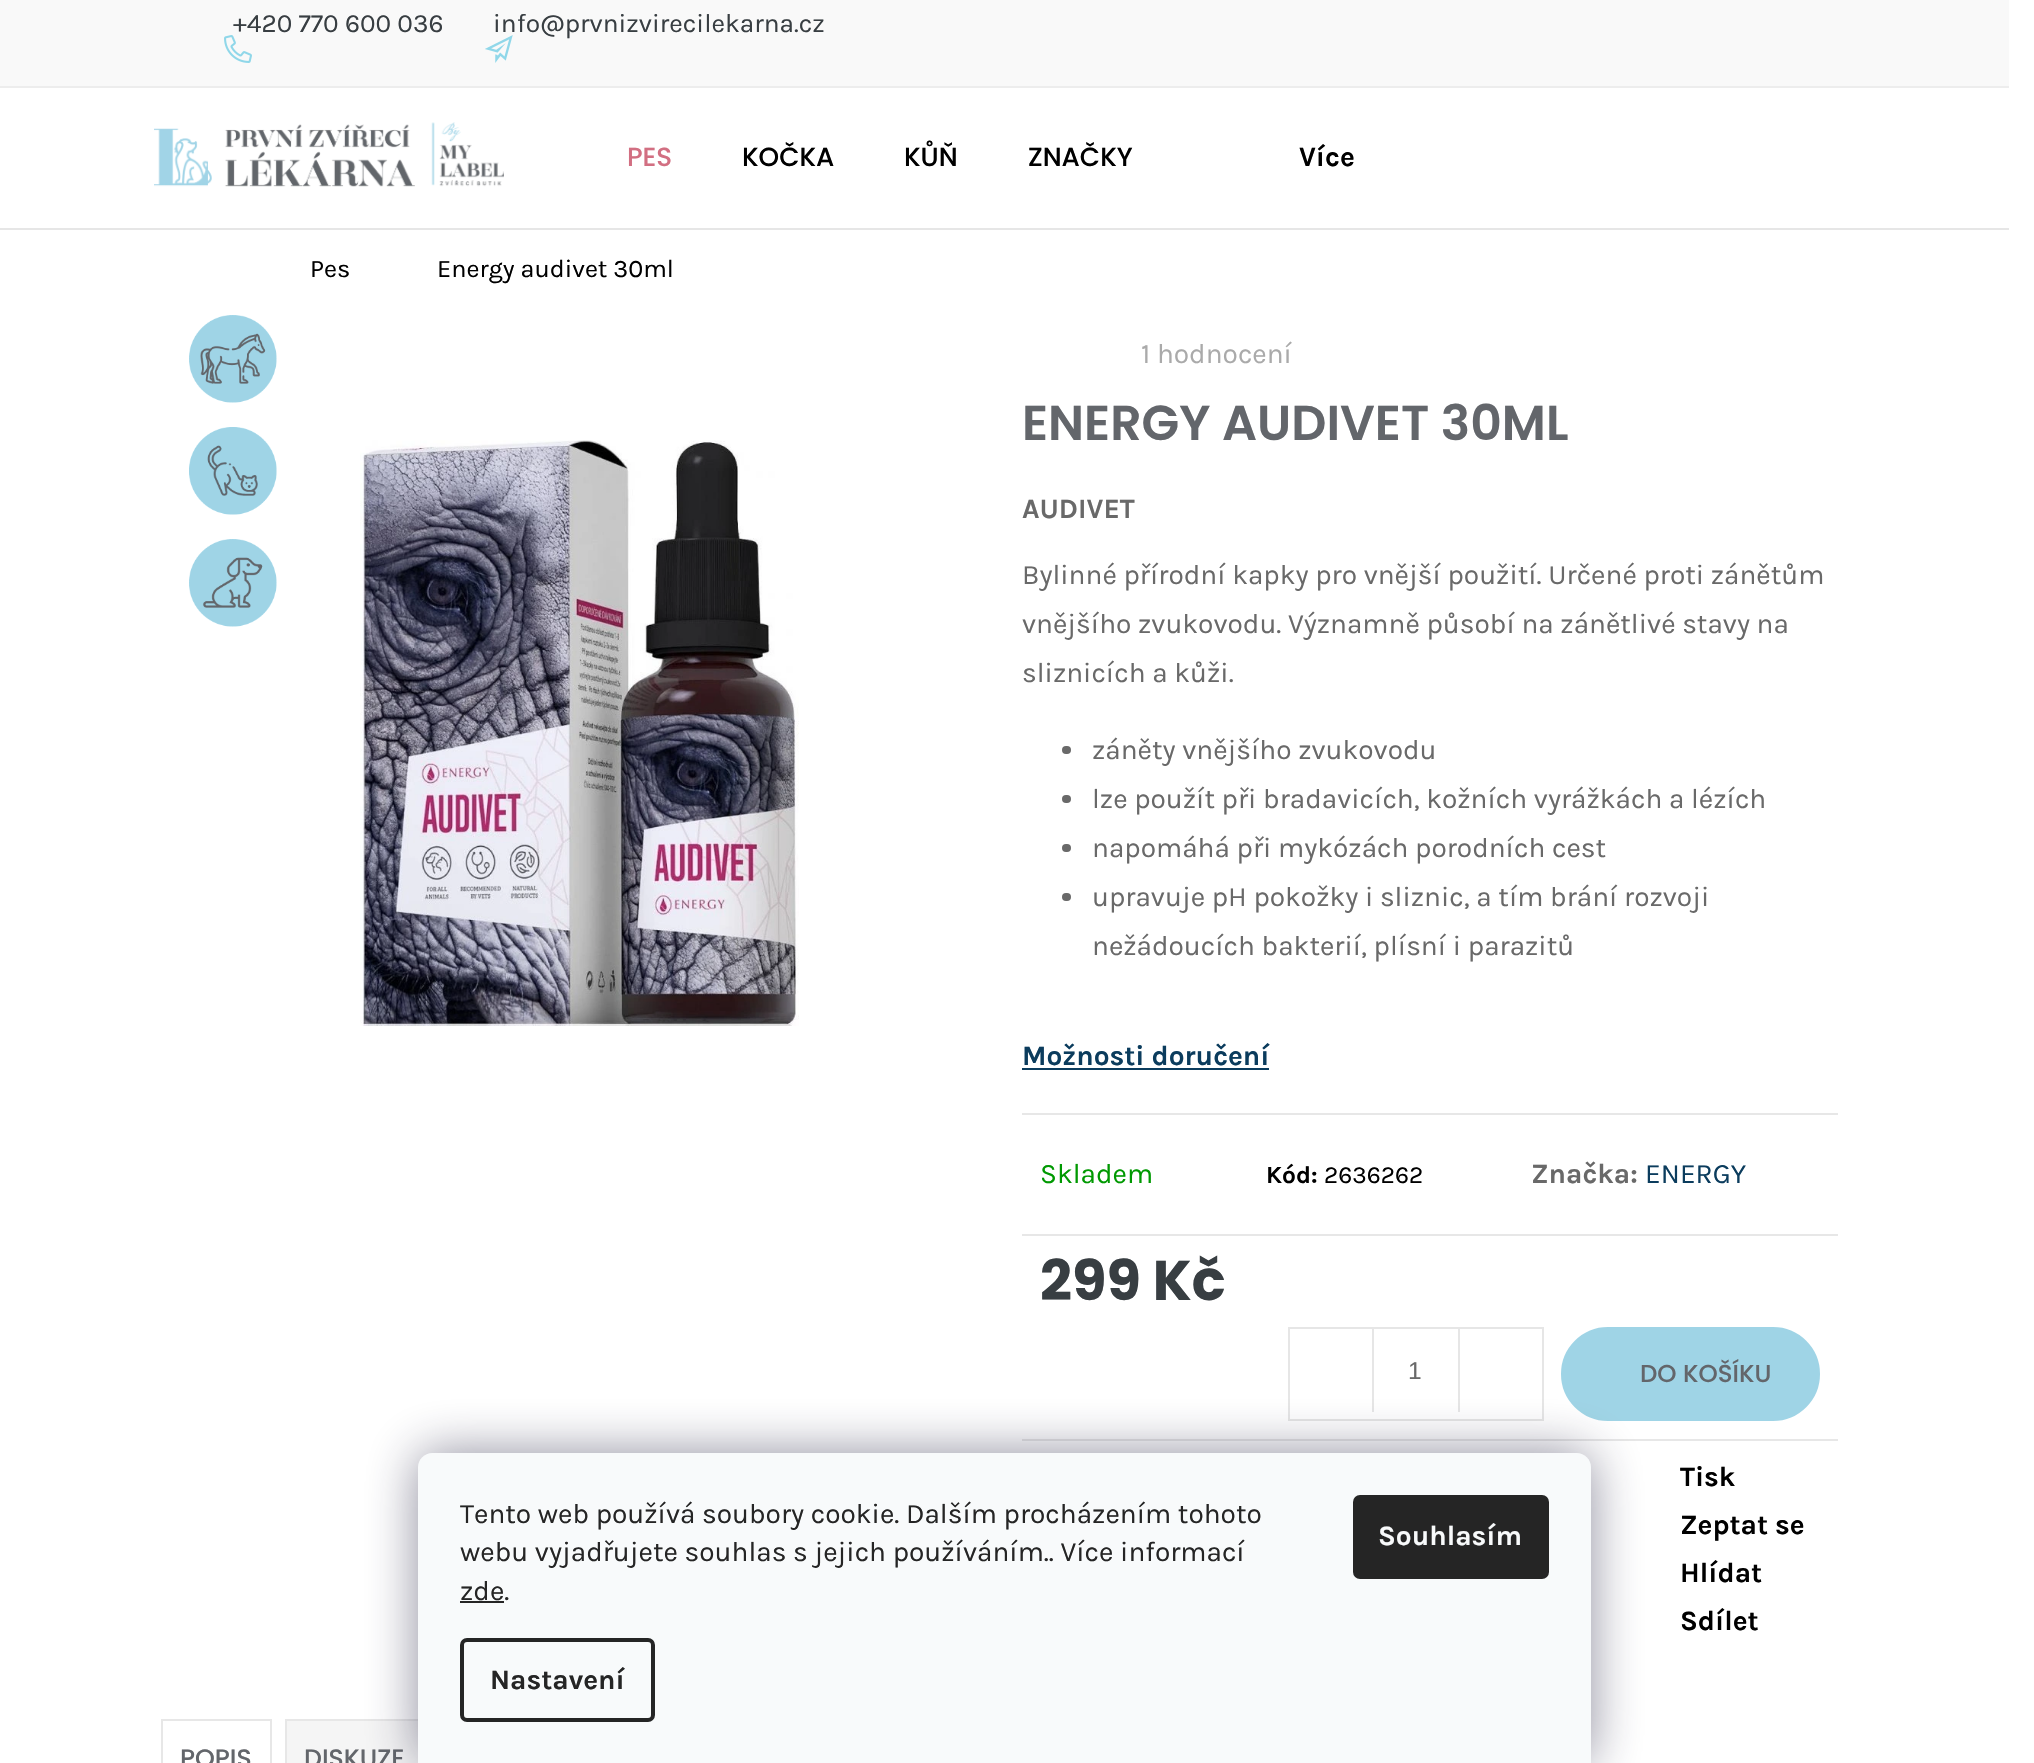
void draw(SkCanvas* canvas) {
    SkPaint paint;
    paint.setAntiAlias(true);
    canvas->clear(0xFFFFFFFF);
    paint.setColor(0xFFF9F9F9);
    canvas->drawRect(SkRect::MakeXYWH(0, 0, 2009, 86), paint);
    paint.setColor(0xFFEDEDED);
    canvas->drawRect(SkRect::MakeXYWH(0, 86, 2009, 2), paint);
    canvas->drawImageRect(SkImages::DeferredFromEncodedData(SkData::MakeFromFileName("img1.png")), SkRect::MakeXYWH(224, 35, 28, 28), SkSamplingOptions());
    SkFont font1(fontMgr->matchFamilyStyle("Karla", SkFontStyle::Normal()), 26.25f);
    font1.setSubpixel(true);
    paint.setColor(0xFF383E42);
    canvas->drawString("+420 770 600 036", 233, 32, font1, paint);
    canvas->drawImageRect(SkImages::DeferredFromEncodedData(SkData::MakeFromFileName("img2.png")), SkRect::MakeXYWH(485, 35, 28, 28), SkSamplingOptions());
    canvas->drawString("info@prvnizvirecilekarna.cz", 493, 32, font1, paint);
    paint.setColor(0xFFE6E6E6);
    canvas->drawRect(SkRect::MakeXYWH(0, 228, 2009, 2), paint);
    canvas->drawImageRect(SkImages::DeferredFromEncodedData(SkData::MakeFromFileName("img3.png")), SkRect::MakeXYWH(154, 122, 350, 65), SkSamplingOptions());
    SkFont font2(fontMgr->matchFamilyStyle("Poppins", SkFontStyle(500, SkFontStyle::kNormal_Width, SkFontStyle::kUpright_Slant)), 26.25f);
    font2.setSubpixel(true);
    paint.setColor(0xFFD26F82);
    canvas->drawString("PES", 627, 166, font2, paint);
    paint.setColor(0xFF000000);
    canvas->drawString("KOČKA", 742, 166, font2, paint);
    canvas->drawString("KŮŇ", 904, 166, font2, paint);
    canvas->drawString("ZNAČKY", 1028, 166, font2, paint);
    SkFont font3(fontMgr->matchFamilyStyle("Karla", SkFontStyle::Bold()), 28);
    font3.setSubpixel(true);
    canvas->drawString("Více", 1299, 166, font3, paint);
    SkFont font4(fontMgr->matchFamilyStyle("Karla", SkFontStyle::Normal()), 25.25f);
    font4.setSubpixel(true);
    canvas->drawString("Pes", 310, 277, font4, paint);
    canvas->drawString("Energy audivet 30ml", 437, 277, font4, paint);
    canvas->drawImageRect(SkImages::DeferredFromEncodedData(SkData::MakeFromFileName("img4.png")), SkRect::MakeXYWH(189, 315, 88, 88), SkSamplingOptions());
    canvas->drawImageRect(SkImages::DeferredFromEncodedData(SkData::MakeFromFileName("img5.png")), SkRect::MakeXYWH(189, 427, 88, 88), SkSamplingOptions());
    canvas->drawImageRect(SkImages::DeferredFromEncodedData(SkData::MakeFromFileName("img6.png")), SkRect::MakeXYWH(189, 539, 88, 88), SkSamplingOptions());
    canvas->drawImageRect(SkImages::DeferredFromEncodedData(SkData::MakeFromFileName("img7.png")), SkRect::MakeXYWH(360, 440, 439, 586), SkSamplingOptions());
    SkFont font5(fontMgr->matchFamilyStyle("Karla", SkFontStyle::Normal()), 28);
    font5.setSubpixel(true);
    paint.setColor(0xFFAAAAAA);
    canvas->drawString("1 hodnocení", 1141, 363, font5, paint);
    SkFont font6(fontMgr->matchFamilyStyle("Poppins", SkFontStyle(600, SkFontStyle::kNormal_Width, SkFontStyle::kUpright_Slant)), 49);
    font6.setSubpixel(true);
    paint.setColor(0xFF63666B);
    canvas->drawString("ENERGY AUDIVET 30ML", 1022, 440, font6, paint);
    paint.setColor(0xFF696969);
    canvas->drawString("AUDIVET", 1022, 518, font3, paint);
    canvas->drawString("Bylinné přírodní kapky pro vnější použití. Určené proti zánětům", 1022, 584, font5, paint);
    canvas->drawString("vnějšího zvukovodu. Významně působí na zánětlivé stavy na", 1022, 633, font5, paint);
    canvas->drawString("sliznicích a kůži.", 1022, 682, font5, paint);
    canvas->drawRoundRect(SkRect::MakeXYWH(1062, 746, 9, 8), 4, 4, paint);
    canvas->drawString("záněty vnějšího zvukovodu", 1092, 759, font5, paint);
    canvas->drawRoundRect(SkRect::MakeXYWH(1062, 795, 9, 8), 4, 4, paint);
    canvas->drawString("lze použít při bradavicích, kožních vyrážkách a lézích", 1092, 808, font5, paint);
    canvas->drawRoundRect(SkRect::MakeXYWH(1062, 844, 9, 8), 4, 4, paint);
    canvas->drawString("napomáhá při mykózách porodních cest", 1092, 857, font5, paint);
    canvas->drawRoundRect(SkRect::MakeXYWH(1062, 893, 9, 8), 4, 4, paint);
    canvas->drawString("upravuje pH pokožky i sliznic, a tím brání rozvoji", 1092, 906, font5, paint);
    canvas->drawString("nežádoucích bakterií, plísní i parazitů", 1092, 955, font5, paint);
    paint.setColor(0xFF0B3C5D);
    canvas->drawString("Možnosti doručení", 1022, 1065, font3, paint);
    canvas->drawRect(SkRect::MakeXYWH(1022, 1068, 247, 2), paint);
    paint.setColor(0xFFE7E7E7);
    canvas->drawRect(SkRect::MakeXYWH(1022, 1113, 816, 2), paint);
    canvas->drawRect(SkRect::MakeXYWH(1022, 1234, 816, 2), paint);
    paint.setColor(0xFF009901);
    canvas->drawString("Skladem", 1040, 1183, font5, paint);
    SkFont font7(fontMgr->matchFamilyStyle("Karla", SkFontStyle::Bold()), 24.5f);
    font7.setSubpixel(true);
    paint.setColor(0xFF000000);
    canvas->drawString("Kód:", 1266, 1183, font7, paint);
    SkFont font8(fontMgr->matchFamilyStyle("Karla", SkFontStyle::Normal()), 24.5f);
    font8.setSubpixel(true);
    canvas->drawString("2636262", 1324, 1183, font8, paint);
    paint.setColor(0xFF696969);
    canvas->drawString("Značka:", 1531, 1183, font3, paint);
    paint.setColor(0xFF0B3C5D);
    canvas->drawString("ENERGY", 1645, 1183, font5, paint);
    paint.setColor(0xFFE7E7E7);
    canvas->drawRect(SkRect::MakeXYWH(1022, 1439, 816, 2), paint);
    SkFont font9(fontMgr->matchFamilyStyle("Poppins", SkFontStyle::Bold()), 56);
    font9.setSubpixel(true);
    paint.setColor(0xFF383E42);
    canvas->drawString("299 Kč", 1040, 1300, font9, paint);
    paint.setStyle(SkPaint::kStroke_Style);
    paint.setStrokeWidth(2);
    paint.setColor(0xFFE6E6E6);
    canvas->drawRect(SkRect::MakeXYWH(1289, 1328, 254, 92), paint);
    paint.setStyle(SkPaint::kFill_Style);
    canvas->drawRect(SkRect::MakeXYWH(1372, 1328, 2, 84), paint);
    SkFont font10(fontMgr->matchFamilyStyle("Liberation Sans", SkFontStyle::Normal()), 24.5f);
    font10.setSubpixel(true);
    paint.setColor(0xFF696969);
    canvas->drawString("1", 1408, 1379, font10, paint);
    paint.setColor(0xFFE6E6E6);
    canvas->drawRect(SkRect::MakeXYWH(1458, 1328, 2, 84), paint);
    paint.setColor(0xFF9FD4E6);
    canvas->drawRoundRect(SkRect::MakeXYWH(1563, 1329, 255, 90), 45, 45, paint);
    paint.setStyle(SkPaint::kStroke_Style);
    paint.setStrokeWidth(4);
    canvas->drawRoundRect(SkRect::MakeXYWH(1563, 1329, 255, 90), 45, 45, paint);
    SkFont font11(fontMgr->matchFamilyStyle("Poppins", SkFontStyle(500, SkFontStyle::kNormal_Width, SkFontStyle::kUpright_Slant)), 24.5f);
    font11.setSubpixel(true);
    paint.setStyle(SkPaint::kFill_Style);
    paint.setColor(0xFF63666B);
    canvas->drawString("DO KOŠÍKU", 1640, 1382, font11, paint);
    paint.setColor(0xFF000000);
    canvas->drawString("Tisk", 1680, 1486, font3, paint);
    canvas->drawString("Zeptat se", 1680, 1534, font3, paint);
    canvas->drawString("Hlídat", 1680, 1582, font3, paint);
    canvas->drawString("Sdílet", 1680, 1630, font3, paint);
    paint.setColor(0xFFE7E7E7);
    canvas->drawRect(SkRect::MakeXYWH(161, 1719, 110, 2), paint);
    canvas->drawRect(SkRect::MakeXYWH(270, 1719, 2, 44), paint);
    canvas->drawRect(SkRect::MakeXYWH(161, 1719, 2, 44), paint);
    SkFont font12(fontMgr->matchFamilyStyle("Poppins", SkFontStyle(500, SkFontStyle::kNormal_Width, SkFontStyle::kUpright_Slant)), 25.25f);
    font12.setSubpixel(true);
    paint.setColor(0xFF63666B);
    canvas->drawString("POPIS", 180, 1767, font12, paint);
    paint.setColor(0xFFF5F5F5);
    canvas->drawRect(SkRect::MakeXYWH(287, 1721, 131, 42), paint);
    paint.setStyle(SkPaint::kStroke_Style);
    paint.setStrokeWidth(2);
    paint.setColor(0xFFE7E7E7);
    canvas->drawRect(SkRect::MakeXYWH(286, 1720, 137, 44), paint);
    paint.setStyle(SkPaint::kFill_Style);
    paint.setColor(0xFF63666B);
    canvas->drawString("DISKUZE", 304, 1767, font12, paint);
    paint.setColor(0x801B1939);
    paint.setMaskFilter(SkMaskFilter::MakeBlur(kNormal_SkBlurStyle, 26));
    canvas->drawRoundRect(SkRect::MakeXYWH(418, 1453, 1173, 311), 14, 14, paint);
    paint.setMaskFilter(nullptr);
    paint.setColor(0xFFF8FAFB);
    canvas->drawPath(SkPathBuilder().moveTo(432, 1453).lineTo(1577, 1453).cubicTo(1584.5f, 1453, 1591, 1459.5f, 1591, 1467).lineTo(1591, 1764).lineTo(418, 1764).lineTo(418, 1467).cubicTo(418, 1459.5f, 424.5f, 1453, 432, 1453).close().detach(), paint);
    paint.setColor(0xFF252525);
    canvas->drawString("Tento web používá soubory cookie. Dalším procházením tohoto", 460, 1523, font5, paint);
    canvas->drawString("webu vyjadřujete souhlas s jejich používáním.. Více informací", 460, 1561, font5, paint);
    canvas->drawString("zde.", 460, 1600, font5, paint);
    canvas->drawRect(SkRect::MakeXYWH(460, 1601, 44, 2), paint);
    paint.setStyle(SkPaint::kStroke_Style);
    paint.setStrokeWidth(4);
    canvas->drawRoundRect(SkRect::MakeXYWH(462, 1640, 191, 80), 5, 5, paint);
    paint.setStyle(SkPaint::kFill_Style);
    canvas->drawString("Nastavení", 490, 1689, font3, paint);
    canvas->drawRoundRect(SkRect::MakeXYWH(1353, 1495, 196, 84), 7, 7, paint);
    paint.setColor(0xFFF8FAFB);
    canvas->drawString("Souhlasím", 1378, 1545, font3, paint);
}
